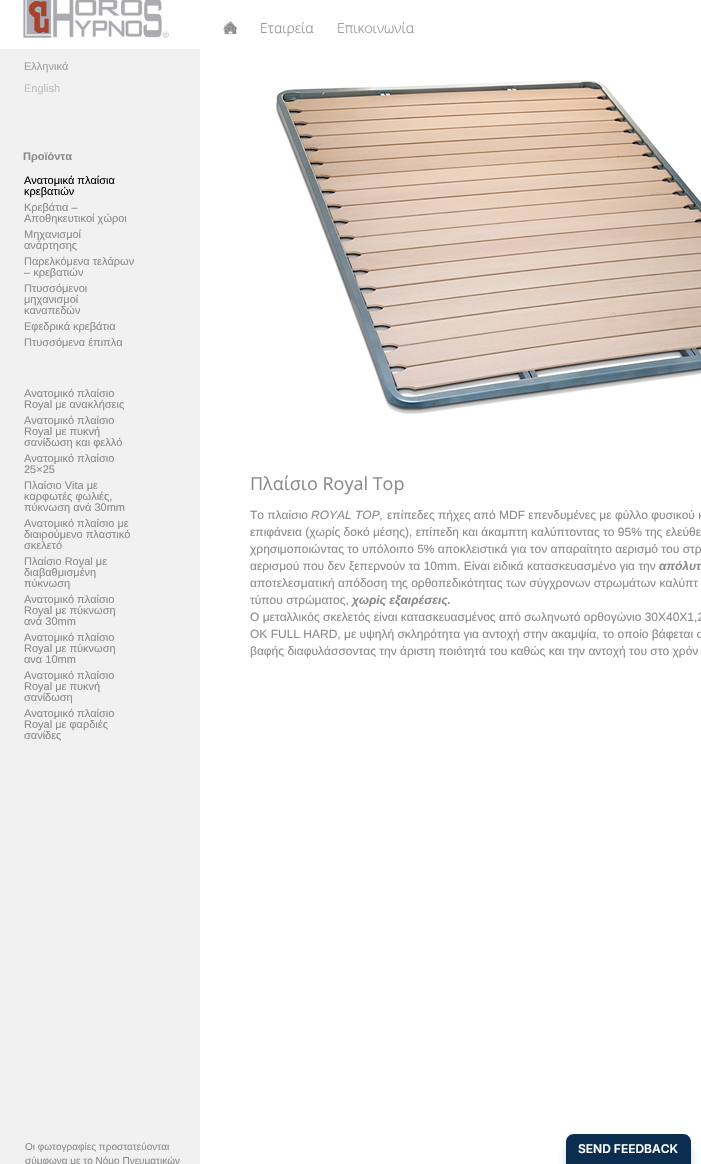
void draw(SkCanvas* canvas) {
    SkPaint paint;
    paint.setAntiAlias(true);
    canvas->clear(0xFFFFFFFF);
    paint.setColor(0xFFF1F1F1);
    canvas->drawRect(SkRect::MakeXYWH(0, 49, 200, 1115), paint);
    canvas->drawImageRect(SkImages::DeferredFromEncodedData(SkData::MakeFromFileName("img1.png")), SkRect::MakeXYWH(23, 0, 146, 38), SkSamplingOptions());
    SkFont font1(fontMgr->matchFamilyStyle("Liberation Sans", SkFontStyle::Normal()), 11);
    font1.setSubpixel(true);
    paint.setColor(0xFF9E9FA0);
    canvas->drawString("Ελληνικά", 24, 70, font1, paint);
    paint.setColor(0xFFBDBEBF);
    canvas->drawString("English", 24, 92, font1, paint);
    SkFont font2(fontMgr->matchFamilyStyle("Liberation Sans", SkFontStyle::Bold()), 11);
    font2.setSubpixel(true);
    paint.setColor(0xFF898B8C);
    canvas->drawString("Προϊόντα", 23, 160, font2, paint);
    paint.setColor(0xFF000000);
    canvas->drawString("Ανατομικά πλαίσια", 24, 184, font1, paint);
    canvas->drawString("κρεβατιών", 24, 195, font1, paint);
    paint.setColor(0xFF898B8C);
    canvas->drawString("Κρεβάτια –", 24, 211, font1, paint);
    canvas->drawString("Αποθηκευτικοί χώροι", 24, 222, font1, paint);
    canvas->drawString("Μηχανισμοί", 24, 238, font1, paint);
    canvas->drawString("ανάρτησης", 24, 249, font1, paint);
    canvas->drawString("Παρελκόμενα τελάρων", 24, 265, font1, paint);
    canvas->drawString("– κρεβατιών", 24, 276, font1, paint);
    canvas->drawString("Πτυσσόμενοι", 24, 292, font1, paint);
    canvas->drawString("μηχανισμοί", 24, 303, font1, paint);
    canvas->drawString("καναπεδών", 24, 314, font1, paint);
    canvas->drawString("Εφεδρικά κρεβάτια", 24, 330, font1, paint);
    canvas->drawString("Πτυσσόμενα έπιπλα", 24, 346, font1, paint);
    canvas->drawString("Ανατομικό πλαίσιο", 24, 397, font1, paint);
    canvas->drawString("Royal με ανακλήσεις", 24, 408, font1, paint);
    canvas->drawString("Ανατομικό πλαίσιο", 24, 424, font1, paint);
    canvas->drawString("Royal με πυκνή", 24, 435, font1, paint);
    canvas->drawString("σανίδωση και φελλό", 24, 446, font1, paint);
    canvas->drawString("Ανατομικό πλαίσιο", 24, 462, font1, paint);
    canvas->drawString("25×25", 24, 473, font1, paint);
    canvas->drawString("Πλαίσιο Vita με", 24, 489, font1, paint);
    canvas->drawString("καρφωτές φωλιές,", 24, 500, font1, paint);
    canvas->drawString("πύκνωση ανά 30mm", 24, 511, font1, paint);
    canvas->drawString("Ανατομικό πλαίσιο με", 24, 527, font1, paint);
    canvas->drawString("διαιρούμενο πλαστικό", 24, 538, font1, paint);
    canvas->drawString("σκελετό", 24, 549, font1, paint);
    canvas->drawString("Πλαίσιο Royal με", 24, 565, font1, paint);
    canvas->drawString("διαβαθμισμένη", 24, 576, font1, paint);
    canvas->drawString("πύκνωση", 24, 587, font1, paint);
    canvas->drawString("Ανατομικό πλαίσιο", 24, 603, font1, paint);
    canvas->drawString("Royal με πύκνωση", 24, 614, font1, paint);
    canvas->drawString("ανά 30mm", 24, 625, font1, paint);
    canvas->drawString("Ανατομικό πλαίσιο", 24, 641, font1, paint);
    canvas->drawString("Royal με πύκνωση", 24, 652, font1, paint);
    canvas->drawString("ανα 10mm", 24, 663, font1, paint);
    canvas->drawString("Ανατομικό πλαίσιο", 24, 679, font1, paint);
    canvas->drawString("Royal με πυκνή", 24, 690, font1, paint);
    canvas->drawString("σανίδωση", 24, 701, font1, paint);
    canvas->drawString("Ανατομικό πλαίσιο", 24, 717, font1, paint);
    canvas->drawString("Royal με φαρδιές", 24, 728, font1, paint);
    canvas->drawString("σανίδες", 24, 739, font1, paint);
    canvas->drawImageRect(SkImages::DeferredFromEncodedData(SkData::MakeFromFileName("img2.png")), SkRect::MakeXYWH(223, 21, 14, 13), SkSamplingOptions());
    SkFont font3(fontMgr->matchFamilyStyle("Open Sans", SkFontStyle(300, SkFontStyle::kNormal_Width, SkFontStyle::kUpright_Slant)), 14);
    font3.setSubpixel(true);
    paint.setColor(0xFFAEAEAE);
    canvas->drawString("@", 223, 33, font3, paint);
    paint.setColor(0xFF898B8C);
    canvas->drawString("Εταιρεία", 260, 33, font3, paint);
    canvas->drawString("Επικοινωνία", 337, 33, font3, paint);
    canvas->drawImageRect(SkImages::DeferredFromEncodedData(SkData::MakeFromFileName("img3.png")), SkRect::MakeXYWH(273, 79, 428, 335), SkSamplingOptions());
    SkFont font4(fontMgr->matchFamilyStyle("Open Sans", SkFontStyle::Normal()), 18);
    font4.setSubpixel(true);
    canvas->drawString("Πλαίσιο Royal Top", 250, 490, font4, paint);
    SkFont font5(fontMgr->matchFamilyStyle("Liberation Sans", SkFontStyle::Normal()), 12);
    font5.setSubpixel(true);
    canvas->drawString("Το πλαίσιο", 250, 519, font5, paint);
    SkFont font6(fontMgr->matchFamilyStyle("Liberation Sans", SkFontStyle::Italic()), 12);
    font6.setSubpixel(true);
    canvas->drawString("ROYAL TOP,", 311, 519, font6, paint);
    canvas->drawString("επίπεδες πήχες από MDF επενδυμένες με φύλλο φυσικού κ", 387, 519, font5, paint);
    canvas->drawString("επιφάνεια (χωρίς δοκό μέσης), επίπεδη και άκαμπτη καλύπτοντας το 95% της ελεύθε", 250, 536, font5, paint);
    canvas->drawString("χρησιμοποιώντας το υπόλοιπο 5% αποκλειστικά για τον απαραίτητο αερισμό του στρ", 250, 553, font5, paint);
    canvas->drawString("αερισμού που δεν ξεπερνούν τα 10mm. Είναι ειδικά κατασκευασμένο για την", 250, 570, font5, paint);
    SkFont font7(fontMgr->matchFamilyStyle("Liberation Sans", SkFontStyle::BoldItalic()), 12);
    font7.setSubpixel(true);
    canvas->drawString("απόλυτ", 659, 570, font7, paint);
    canvas->drawString("αποτελεσματική απόδοση της ορθοπεδικότητας των σύγχρονων στρωμάτων καλύπτ", 250, 587, font5, paint);
    canvas->drawString("τύπου στρώματος,", 250, 604, font5, paint);
    canvas->drawString("χωρίς εξαιρέσεις.", 352, 604, font7, paint);
    canvas->drawString("Ο μεταλλικός σκελετός είναι κατασκευασμένος από σωληνωτό ορθογώνιο 30Χ40Χ1,2", 250, 621, font5, paint);
    canvas->drawString("OK FULL HARD, με υψηλή σκληρότητα για αντοχή στην ακαμψία, το οποίο βάφεται σ", 250, 638, font5, paint);
    canvas->drawString("βαφής διαφυλάσσοντας την άριστη ποιότητά του καθώς και την αντοχή του στο χρόν", 250, 655, font5, paint);
    SkFont font8(fontMgr->matchFamilyStyle("Liberation Sans", SkFontStyle::Normal()), 10);
    font8.setSubpixel(true);
    canvas->drawString("Οι φωτογραφίες προστατεύονται", 25, 1150, font8, paint);
    canvas->drawString("σύμφωνα με το Νόμο Πνευματικών", 25, 1164, font8, paint);
    paint.setColor(0x33003980);
    paint.setMaskFilter(SkMaskFilter::MakeBlur(kNormal_SkBlurStyle, 5));
    canvas->drawRoundRect(SkRect::MakeXYWH(566, 1144, 125, 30), 8, 8, paint);
    paint.setMaskFilter(nullptr);
    paint.setColor(0xFF0A2D50);
    canvas->drawPath(SkPathBuilder().moveTo(574, 1134).lineTo(683, 1134).cubicTo(687.5f, 1134, 691, 1137.5f, 691, 1142).lineTo(691, 1164).lineTo(566, 1164).lineTo(566, 1142).cubicTo(566, 1137.5f, 569.5f, 1134, 574, 1134).close().detach(), paint);
    SkFont font9(fontMgr->matchFamilyStyle("Inter", SkFontStyle(600, SkFontStyle::kNormal_Width, SkFontStyle::kUpright_Slant)), 12);
    font9.setSubpixel(true);
    paint.setColor(0xFFFFFFFF);
    canvas->drawString("SEND FEEDBACK", 578, 1153, font9, paint);
}
